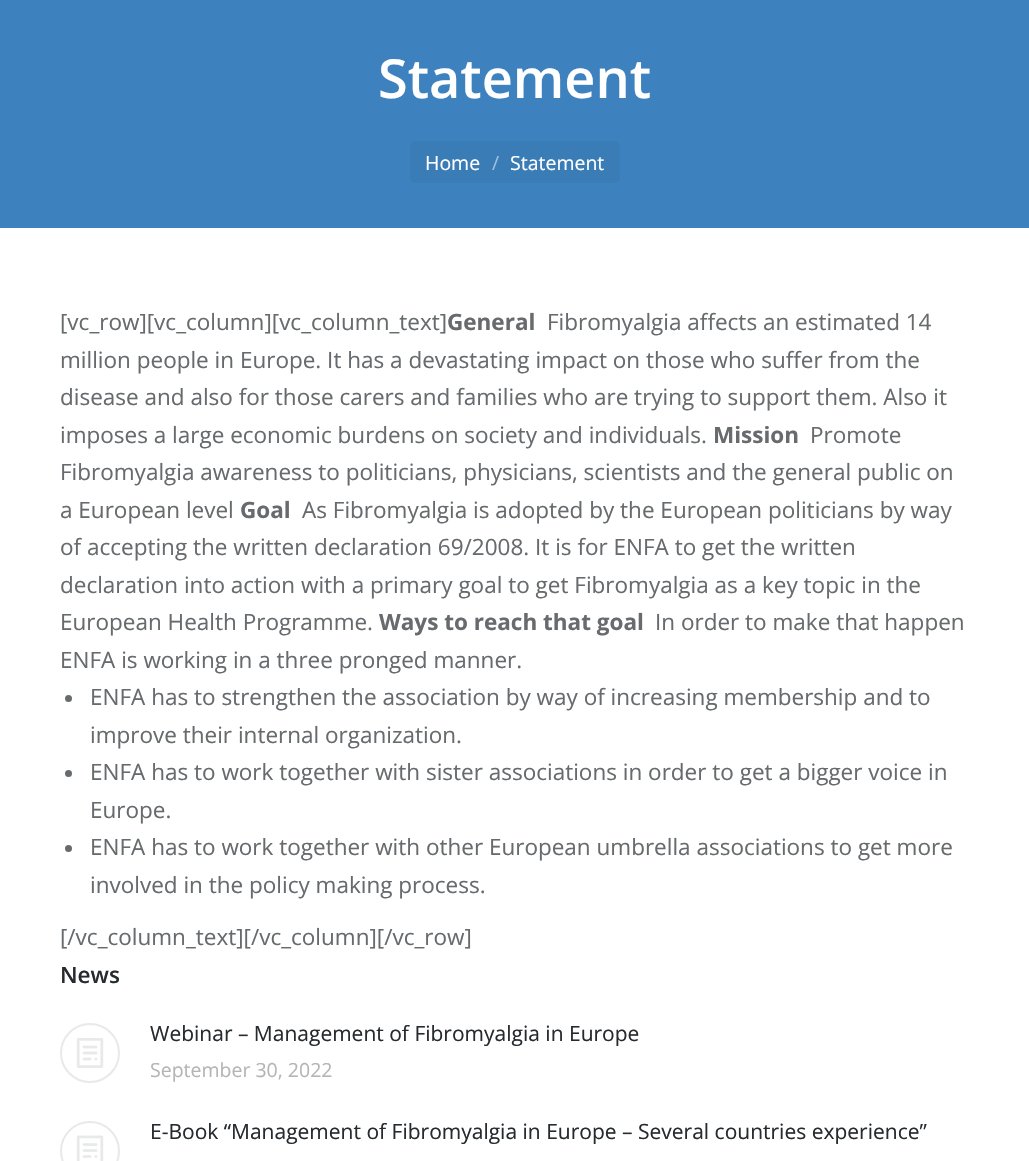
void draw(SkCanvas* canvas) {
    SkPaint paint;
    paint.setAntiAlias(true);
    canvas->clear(0xFFFFFFFF);
    paint.setColor(0xFF3D82BF);
    canvas->drawRect(SkRect::MakeXYWH(0, 0, 1029, 228), paint);
    SkFont font1(fontMgr->matchFamilyStyle("Open Sans", SkFontStyle(600, SkFontStyle::kNormal_Width, SkFontStyle::kUpright_Slant)), 54);
    font1.setSubpixel(true);
    paint.setColor(0xFFFFFFFF);
    canvas->drawString("Statement", 378, 98, font1, paint);
    paint.setColor(0xFF3A7CB5);
    canvas->drawRoundRect(SkRect::MakeXYWH(410, 141, 210, 42), 5, 5, paint);
    SkFont font2(fontMgr->matchFamilyStyle("Open Sans", SkFontStyle::Normal()), 19.5f);
    font2.setSubpixel(true);
    paint.setColor(0xFFFFFFFF);
    canvas->drawString("Home", 425, 170, font2, paint);
    paint.setColor(0xFF9DBEDA);
    canvas->drawString("/", 492, 170, font2, paint);
    paint.setColor(0xFFFFFFFF);
    canvas->drawString("Statement", 510, 170, font2, paint);
    SkFont font3(fontMgr->matchFamilyStyle("Open Sans", SkFontStyle::Normal()), 22.5f);
    font3.setSubpixel(true);
    paint.setColor(0xFF676B6D);
    canvas->drawString("[vc_row][vc_column][vc_column_text]", 60, 330, font3, paint);
    SkFont font4(fontMgr->matchFamilyStyle("Open Sans", SkFontStyle::Bold()), 22.5f);
    font4.setSubpixel(true);
    canvas->drawString("General", 447, 330, font4, paint);
    canvas->drawString("Fibromyalgia affects an estimated 14", 547, 330, font3, paint);
    canvas->drawString("million people in Europe. It has a devastating impact on those who suffer from the", 60, 368, font3, paint);
    canvas->drawString("disease and also for those carers and families who are trying to support them. Also it", 60, 405, font3, paint);
    canvas->drawString("imposes a large economic burdens on society and individuals.", 60, 443, font3, paint);
    canvas->drawString("Mission", 713, 443, font4, paint);
    canvas->drawString("Promote", 810, 443, font3, paint);
    canvas->drawString("Fibromyalgia awareness to politicians, physicians, scientists and the general public on", 60, 480, font3, paint);
    canvas->drawString("a European level", 60, 518, font3, paint);
    canvas->drawString("Goal", 240, 518, font4, paint);
    canvas->drawString("As Fibromyalgia is adopted by the European politicians by way", 302, 518, font3, paint);
    canvas->drawString("of accepting the written declaration 69/2008. It is for ENFA to get the written", 60, 555, font3, paint);
    canvas->drawString("declaration into action with a primary goal to get Fibromyalgia as a key topic in the", 60, 593, font3, paint);
    canvas->drawString("European Health Programme.", 60, 630, font3, paint);
    canvas->drawString("Ways to reach that goal", 379, 630, font4, paint);
    canvas->drawString("In order to make that happen", 655, 630, font3, paint);
    canvas->drawString("ENFA is working in a three pronged manner.", 60, 668, font3, paint);
    canvas->drawCircle(68.5f, 698.5f, 3.5f, paint);
    canvas->drawString("ENFA has to strengthen the association by way of increasing membership and to", 90, 705, font3, paint);
    canvas->drawString("improve their internal organization.", 90, 743, font3, paint);
    canvas->drawCircle(68.5f, 773.5f, 3.5f, paint);
    canvas->drawString("ENFA has to work together with sister associations in order to get a bigger voice in", 90, 780, font3, paint);
    canvas->drawString("Europe.", 90, 818, font3, paint);
    canvas->drawCircle(68.5f, 848.5f, 3.5f, paint);
    canvas->drawString("ENFA has to work together with other European umbrella associations to get more", 90, 855, font3, paint);
    canvas->drawString("involved in the policy making process.", 90, 893, font3, paint);
    canvas->drawString("[/vc_column_text][/vc_column][/vc_row]", 60, 945, font3, paint);
    SkFont font5(fontMgr->matchFamilyStyle("Open Sans", SkFontStyle(600, SkFontStyle::kNormal_Width, SkFontStyle::kUpright_Slant)), 22.5f);
    font5.setSubpixel(true);
    paint.setColor(0xFF262B2E);
    canvas->drawString("News", 60, 983, font5, paint);
    paint.setStyle(SkPaint::kStroke_Style);
    paint.setStrokeWidth(2);
    paint.setColor(0xFFE8E9E9);
    canvas->drawCircle(90, 1053, 29, paint);
    canvas->drawImageRect(SkImages::DeferredFromEncodedData(SkData::MakeFromFileName("img1.png")), SkRect::MakeXYWH(76, 1038, 28, 30), SkSamplingOptions());
    SkFont font6(fontMgr->matchFamilyStyle("Open Sans", SkFontStyle::Normal()), 21);
    font6.setSubpixel(true);
    paint.setStyle(SkPaint::kFill_Style);
    paint.setColor(0xFF262B2E);
    canvas->drawString("Webinar – Management of Fibromyalgia in Europe", 150, 1041, font6, paint);
    paint.setColor(0xFFB3B5B6);
    canvas->drawString("September 30, 2022", 150, 1077, font2, paint);
    paint.setStyle(SkPaint::kStroke_Style);
    paint.setColor(0xFFE8E9E9);
    canvas->drawCircle(90, 1151, 29, paint);
    canvas->drawImageRect(SkImages::DeferredFromEncodedData(SkData::MakeFromFileName("img2.png")), SkRect::MakeXYWH(76, 1135, 28, 26), SkSamplingOptions());
    paint.setStyle(SkPaint::kFill_Style);
    paint.setColor(0xFF262B2E);
    canvas->drawString("E-Book “Management of Fibromyalgia in Europe – Several countries experience”", 150, 1139, font6, paint);
}
